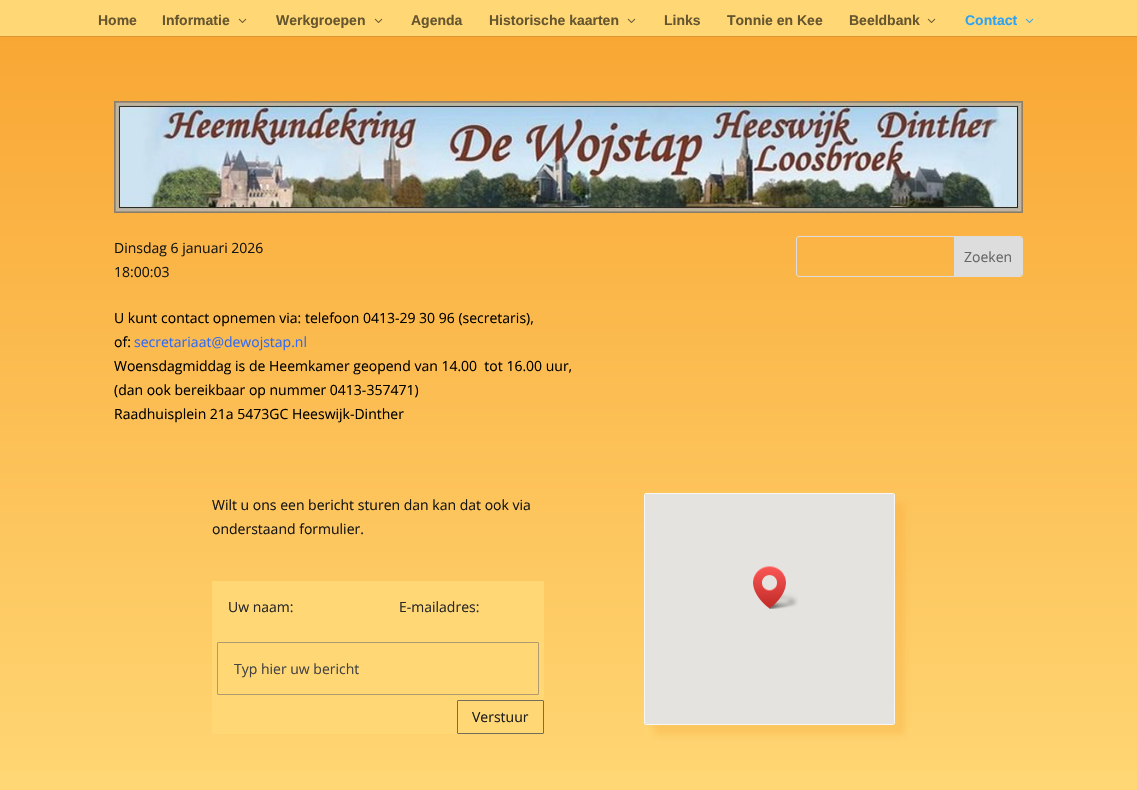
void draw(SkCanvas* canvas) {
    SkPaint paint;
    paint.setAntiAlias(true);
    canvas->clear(0xFFFFD775);
    paint.setColor(0xFFE0962F);
    canvas->drawRect(SkRect::MakeXYWH(0, 36, 1137, 1), paint);
    SkFont font1(fontMgr->matchFamilyStyle("Liberation Sans", SkFontStyle::Bold()), 14);
    font1.setSubpixel(true);
    paint.setColor(0xFF66562F);
    canvas->drawString("Home", 98, 25, font1, paint);
    canvas->drawString("Informatie", 162, 25, font1, paint);
    canvas->drawImageRect(SkImages::DeferredFromEncodedData(SkData::MakeFromFileName("img1.png")), SkRect::MakeXYWH(238, 18, 9, 5), SkSamplingOptions());
    canvas->drawString("Werkgroepen", 276, 25, font1, paint);
    canvas->drawImageRect(SkImages::DeferredFromEncodedData(SkData::MakeFromFileName("img1.png")), SkRect::MakeXYWH(374, 18, 9, 5), SkSamplingOptions());
    canvas->drawString("Agenda", 411, 25, font1, paint);
    canvas->drawString("Historische kaarten", 489, 25, font1, paint);
    canvas->drawImageRect(SkImages::DeferredFromEncodedData(SkData::MakeFromFileName("img1.png")), SkRect::MakeXYWH(627, 18, 9, 5), SkSamplingOptions());
    canvas->drawString("Links", 664, 25, font1, paint);
    canvas->drawString("Tonnie en Kee", 727, 25, font1, paint);
    canvas->drawString("Beeldbank", 849, 25, font1, paint);
    canvas->drawImageRect(SkImages::DeferredFromEncodedData(SkData::MakeFromFileName("img1.png")), SkRect::MakeXYWH(927, 18, 9, 5), SkSamplingOptions());
    paint.setColor(0xFF2EA3F2);
    canvas->drawString("Contact", 965, 25, font1, paint);
    canvas->drawImageRect(SkImages::DeferredFromEncodedData(SkData::MakeFromFileName("img2.png")), SkRect::MakeXYWH(1025, 18, 9, 5), SkSamplingOptions());
    {
        const SkColor colors[] = {0xFFF9A734, 0xFFFFD775};
        const float stops[] = {0, 1};
        const SkPoint ends[] = {{569, 36}, {569, 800}};
        paint.setShader(SkGradientShader::MakeLinear(ends, colors, stops, 2, SkTileMode::kClamp));
        paint.setAlpha(255);
    }
    canvas->drawRect(SkRect::MakeXYWH(0, 37, 1137, 734), paint);
    canvas->drawImageRect(SkImages::DeferredFromEncodedData(SkData::MakeFromFileName("img3.png")), SkRect::MakeXYWH(114, 101, 909, 112), SkSamplingOptions());
    SkFont font2(fontMgr->matchFamilyStyle("Open Sans", SkFontStyle::Normal()), 14);
    font2.setSubpixel(true);
    paint.setShader(nullptr);
    paint.setColor(0xFF161616);
    canvas->drawString("Dinsdag 6 januari 2026", 114, 253, font2, paint);
    canvas->drawString("18:00:03", 114, 277, font2, paint);
    paint.setStyle(SkPaint::kStroke_Style);
    paint.setStrokeWidth(1);
    paint.setColor(0xFFDDDDDD);
    canvas->drawRoundRect(SkRect::MakeXYWH(796.5f, 236.5f, 226, 40), 2.5f, 2.5f, paint);
    paint.setStyle(SkPaint::kFill_Style);
    canvas->drawPath(SkPathBuilder().moveTo(954, 237).lineTo(1020, 237).cubicTo(1021, 237, 1022, 238, 1022, 239).lineTo(1022, 274).cubicTo(1022, 275, 1021, 276, 1020, 276).lineTo(954, 276).close().detach(), paint);
    paint.setColor(0xFF666666);
    canvas->drawString("Zoeken", 964, 262, font2, paint);
    paint.setColor(0xFF000000);
    canvas->drawString("U kunt contact opnemen via: telefoon 0413-29 30 96 (secretaris),", 114, 323, font2, paint);
    canvas->drawString("of:", 114, 347, font2, paint);
    paint.setColor(0xFF2E6BF7);
    canvas->drawString("secretariaat@dewojstap.nl", 134, 347, font2, paint);
    paint.setColor(0xFF000000);
    canvas->drawString("Woensdagmiddag is de Heemkamer geopend van 14.00  tot 16.00 uur,", 114, 371, font2, paint);
    canvas->drawString("(dan ook bereikbaar op nummer 0413-357471)", 114, 395, font2, paint);
    canvas->drawString("Raadhuisplein 21a 5473GC Heeswijk-Dinther", 114, 419, font2, paint);
    paint.setColor(0xFF161616);
    canvas->drawString("Wilt u ons een bericht sturen dan kan dat ook via", 212, 510, font2, paint);
    canvas->drawString("onderstaand formulier.", 212, 534, font2, paint);
    paint.setColor(0xFFFFD775);
    canvas->drawRect(SkRect::MakeXYWH(212, 581, 332, 153), paint);
    paint.setColor(0xFF282828);
    canvas->drawString("Uw naam:", 228, 612, font2, paint);
    canvas->drawString("E-mailadres:", 399, 612, font2, paint);
    paint.setStyle(SkPaint::kStroke_Style);
    paint.setColor(0xFFAF996E);
    canvas->drawRoundRect(SkRect::MakeXYWH(217.5f, 642.5f, 321, 52), 0.5f, 0.5f, paint);
    paint.setStyle(SkPaint::kFill_Style);
    paint.setColor(0xFF444444);
    canvas->drawString("Typ hier uw bericht", 234, 674, font2, paint);
    paint.setStyle(SkPaint::kStroke_Style);
    paint.setColor(0xFF746D5C);
    canvas->drawRoundRect(SkRect::MakeXYWH(457.5f, 700.5f, 86, 33), 0.5f, 0.5f, paint);
    paint.setStyle(SkPaint::kFill_Style);
    paint.setColor(0xFF1C1C1C);
    canvas->drawString("Verstuur", 472, 722, font2, paint);
    paint.setColor(0x4DF9A734);
    paint.setMaskFilter(SkMaskFilter::MakeBlur(kNormal_SkBlurStyle, 3));
    canvas->drawRoundRect(SkRect::MakeXYWH(654, 503, 251, 232), 2, 2, paint);
    paint.setMaskFilter(nullptr);
    paint.setStyle(SkPaint::kStroke_Style);
    paint.setColor(0xFFF7F7F7);
    canvas->drawRoundRect(SkRect::MakeXYWH(644.5f, 493.5f, 250, 231), 1.5f, 1.5f, paint);
    paint.setStyle(SkPaint::kFill_Style);
    paint.setColor(0xFFE5E3DF);
    canvas->drawRoundRect(SkRect::MakeXYWH(645, 494, 249, 230), 1, 1, paint);
    canvas->drawImageRect(SkImages::DeferredFromEncodedData(SkData::MakeFromFileName("img4.png")), SkRect::MakeXYWH(753, 566, 45, 43), SkSamplingOptions());
}
